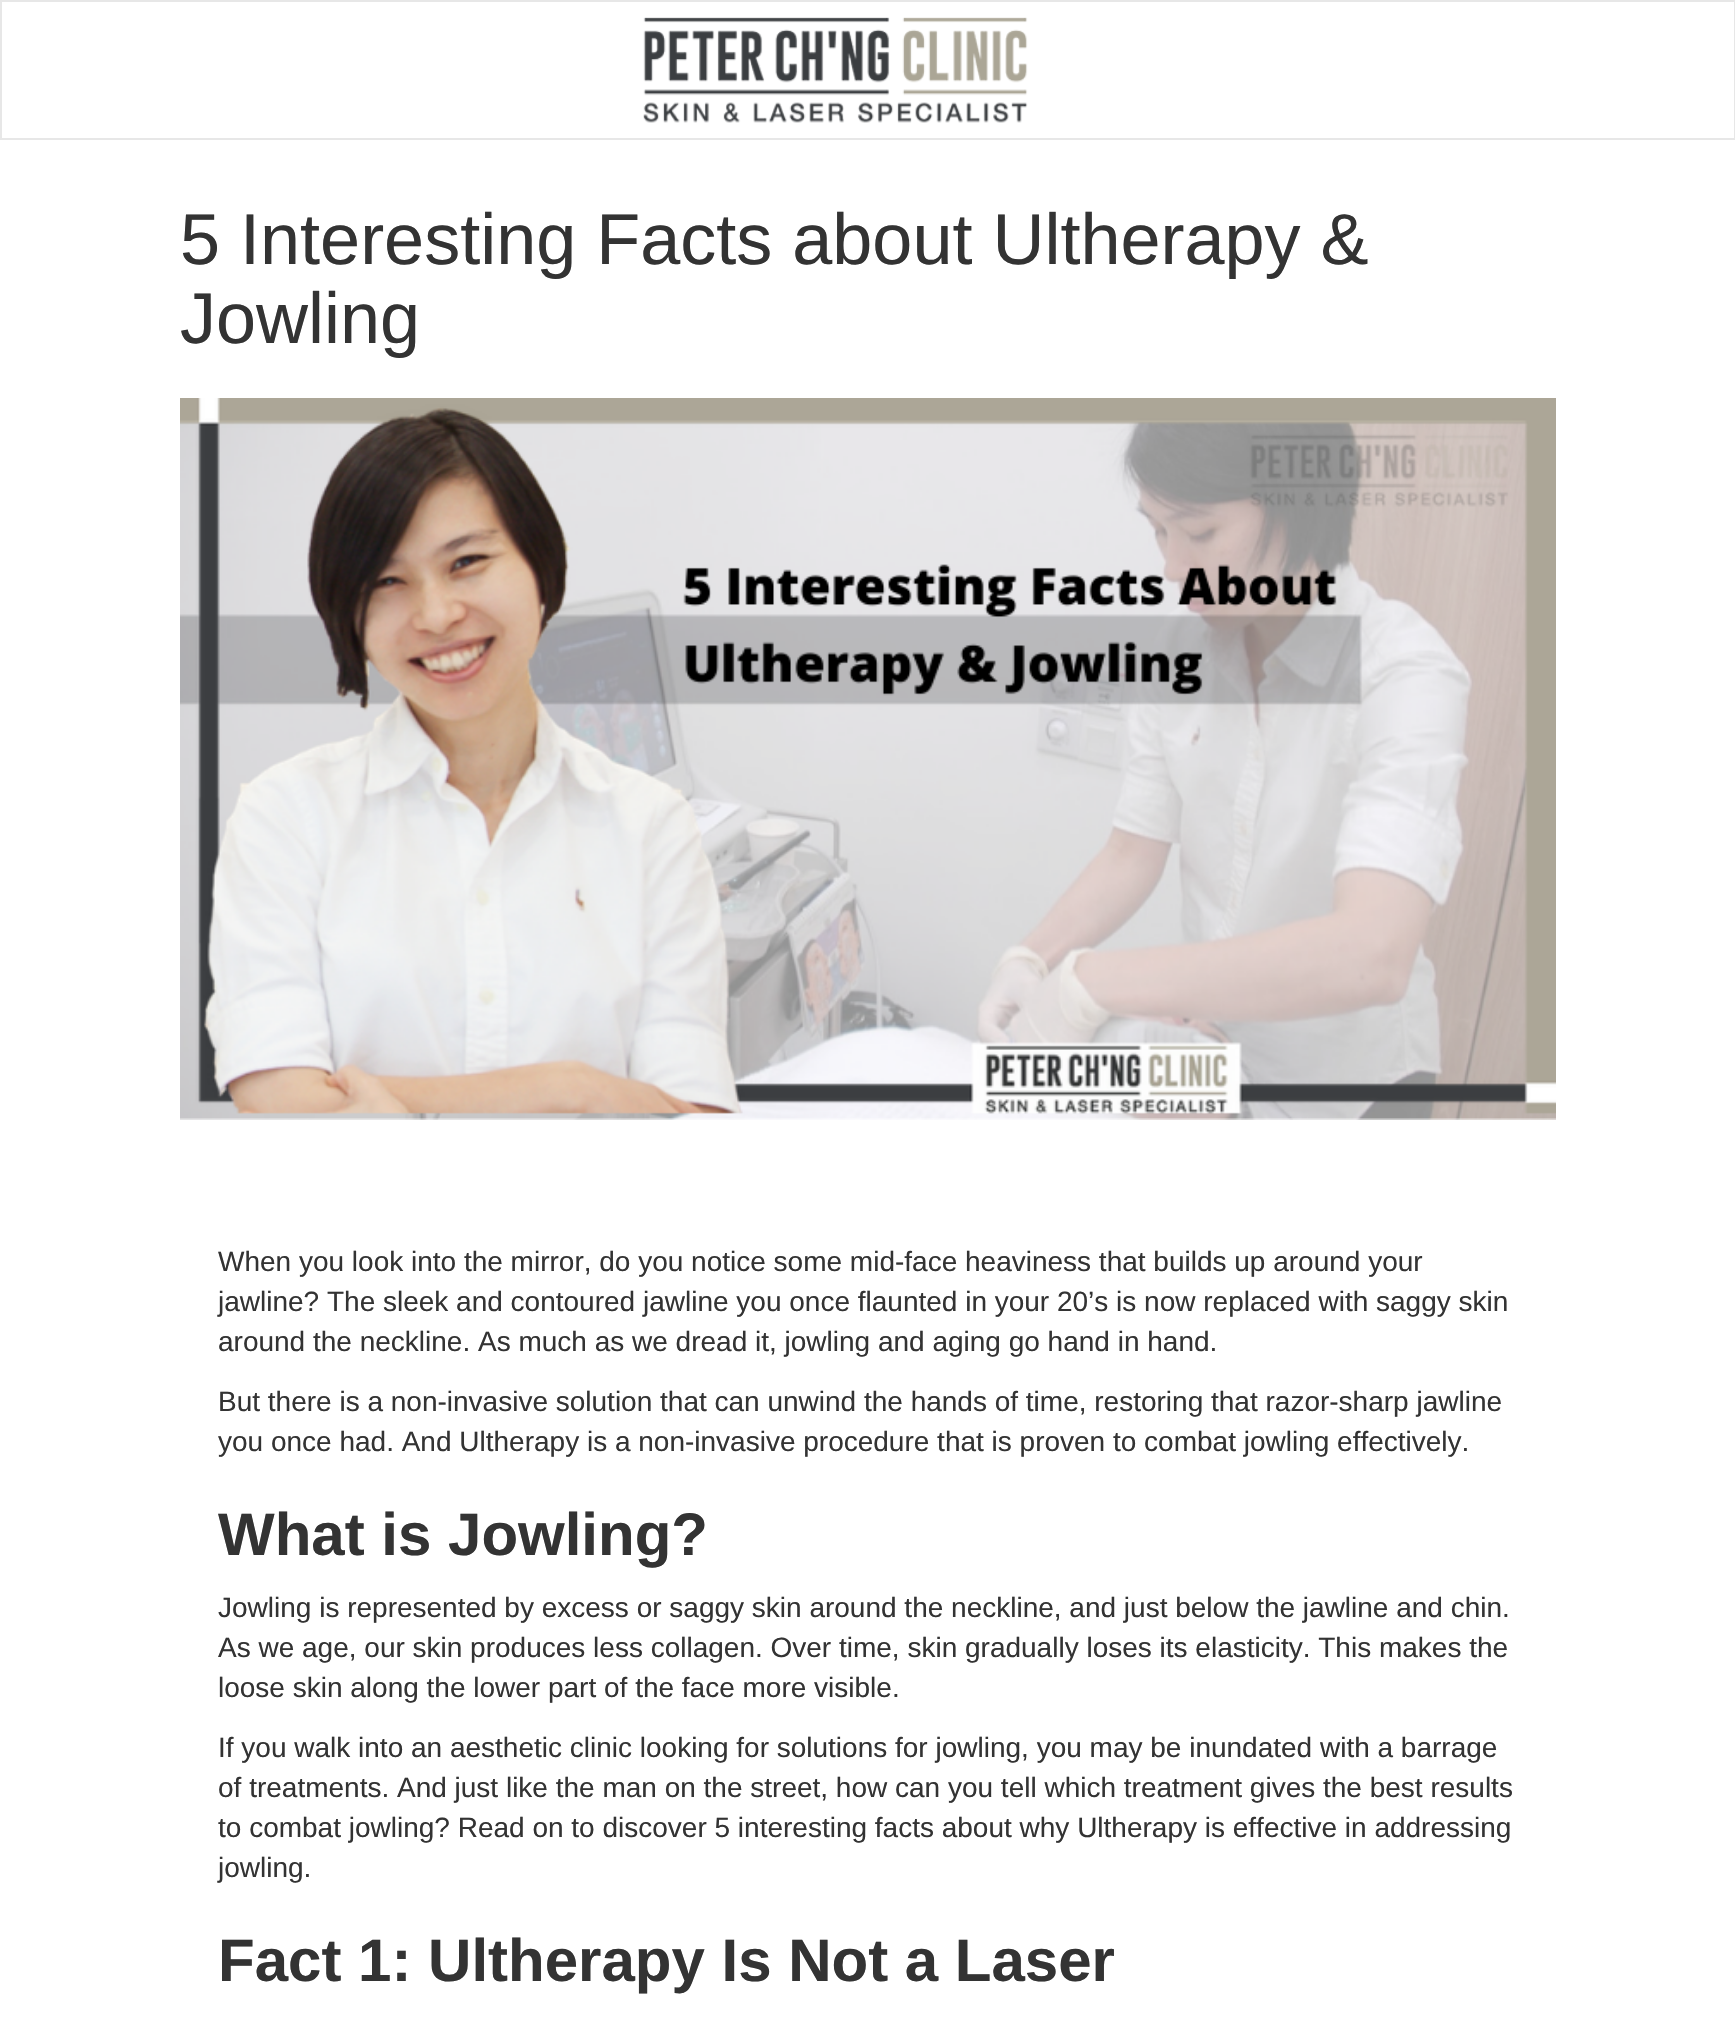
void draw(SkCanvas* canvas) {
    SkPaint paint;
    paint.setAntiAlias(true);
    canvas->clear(0xFFFFFFFF);
    paint.setStyle(SkPaint::kStroke_Style);
    paint.setStrokeWidth(2);
    paint.setColor(0xFFE7E7E7);
    canvas->drawRect(SkRect::MakeXYWH(1, 1, 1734, 138), paint);
    canvas->drawImageRect(SkImages::DeferredFromEncodedData(SkData::MakeFromFileName("img1.png")), SkRect::MakeXYWH(643, 17, 385, 106), SkSamplingOptions());
    SkFont font1(fontMgr->matchFamilyStyle("Liberation Sans", SkFontStyle::Normal()), 72);
    font1.setSubpixel(true);
    paint.setStyle(SkPaint::kFill_Style);
    paint.setColor(0xFF333333);
    canvas->drawString("5 Interesting Facts about Ultherapy &", 180, 264, font1, paint);
    canvas->drawString("Jowling", 180, 343, font1, paint);
    canvas->drawImageRect(SkImages::DeferredFromEncodedData(SkData::MakeFromFileName("img2.png")), SkRect::MakeXYWH(180, 398, 1376, 722), SkSamplingOptions());
    SkFont font2(fontMgr->matchFamilyStyle("Liberation Sans", SkFontStyle::Normal()), 28);
    font2.setSubpixel(true);
    canvas->drawString("When you look into the mirror, do you notice some mid-face heaviness that builds up around your", 218, 1271, font2, paint);
    canvas->drawString("jawline? The sleek and contoured jawline you once flaunted in your 20’s is now replaced with saggy skin", 218, 1311, font2, paint);
    canvas->drawString("around the neckline. As much as we dread it, jowling and aging go hand in hand.", 218, 1351, font2, paint);
    canvas->drawString("But there is a non-invasive solution that can unwind the hands of time, restoring that razor-sharp jawline", 218, 1411, font2, paint);
    canvas->drawString("you once had. And Ultherapy is a non-invasive procedure that is proven to combat jowling effectively.", 218, 1451, font2, paint);
    SkFont font3(fontMgr->matchFamilyStyle("Liberation Sans", SkFontStyle::Bold()), 60);
    font3.setSubpixel(true);
    canvas->drawString("What is Jowling?", 218, 1555, font3, paint);
    canvas->drawString("Jowling is represented by excess or saggy skin around the neckline, and just below the jawline and chin.", 218, 1617, font2, paint);
    canvas->drawString("As we age, our skin produces less collagen. Over time, skin gradually loses its elasticity. This makes the", 218, 1657, font2, paint);
    canvas->drawString("loose skin along the lower part of the face more visible.", 218, 1697, font2, paint);
    canvas->drawString("If you walk into an aesthetic clinic looking for solutions for jowling, you may be inundated with a barrage", 218, 1757, font2, paint);
    canvas->drawString("of treatments. And just like the man on the street, how can you tell which treatment gives the best results", 218, 1797, font2, paint);
    canvas->drawString("to combat jowling? Read on to discover 5 interesting facts about why Ultherapy is effective in addressing", 218, 1837, font2, paint);
    canvas->drawString("jowling.", 218, 1877, font2, paint);
    canvas->drawString("Fact 1: Ultherapy Is Not a Laser", 218, 1981, font3, paint);
}
